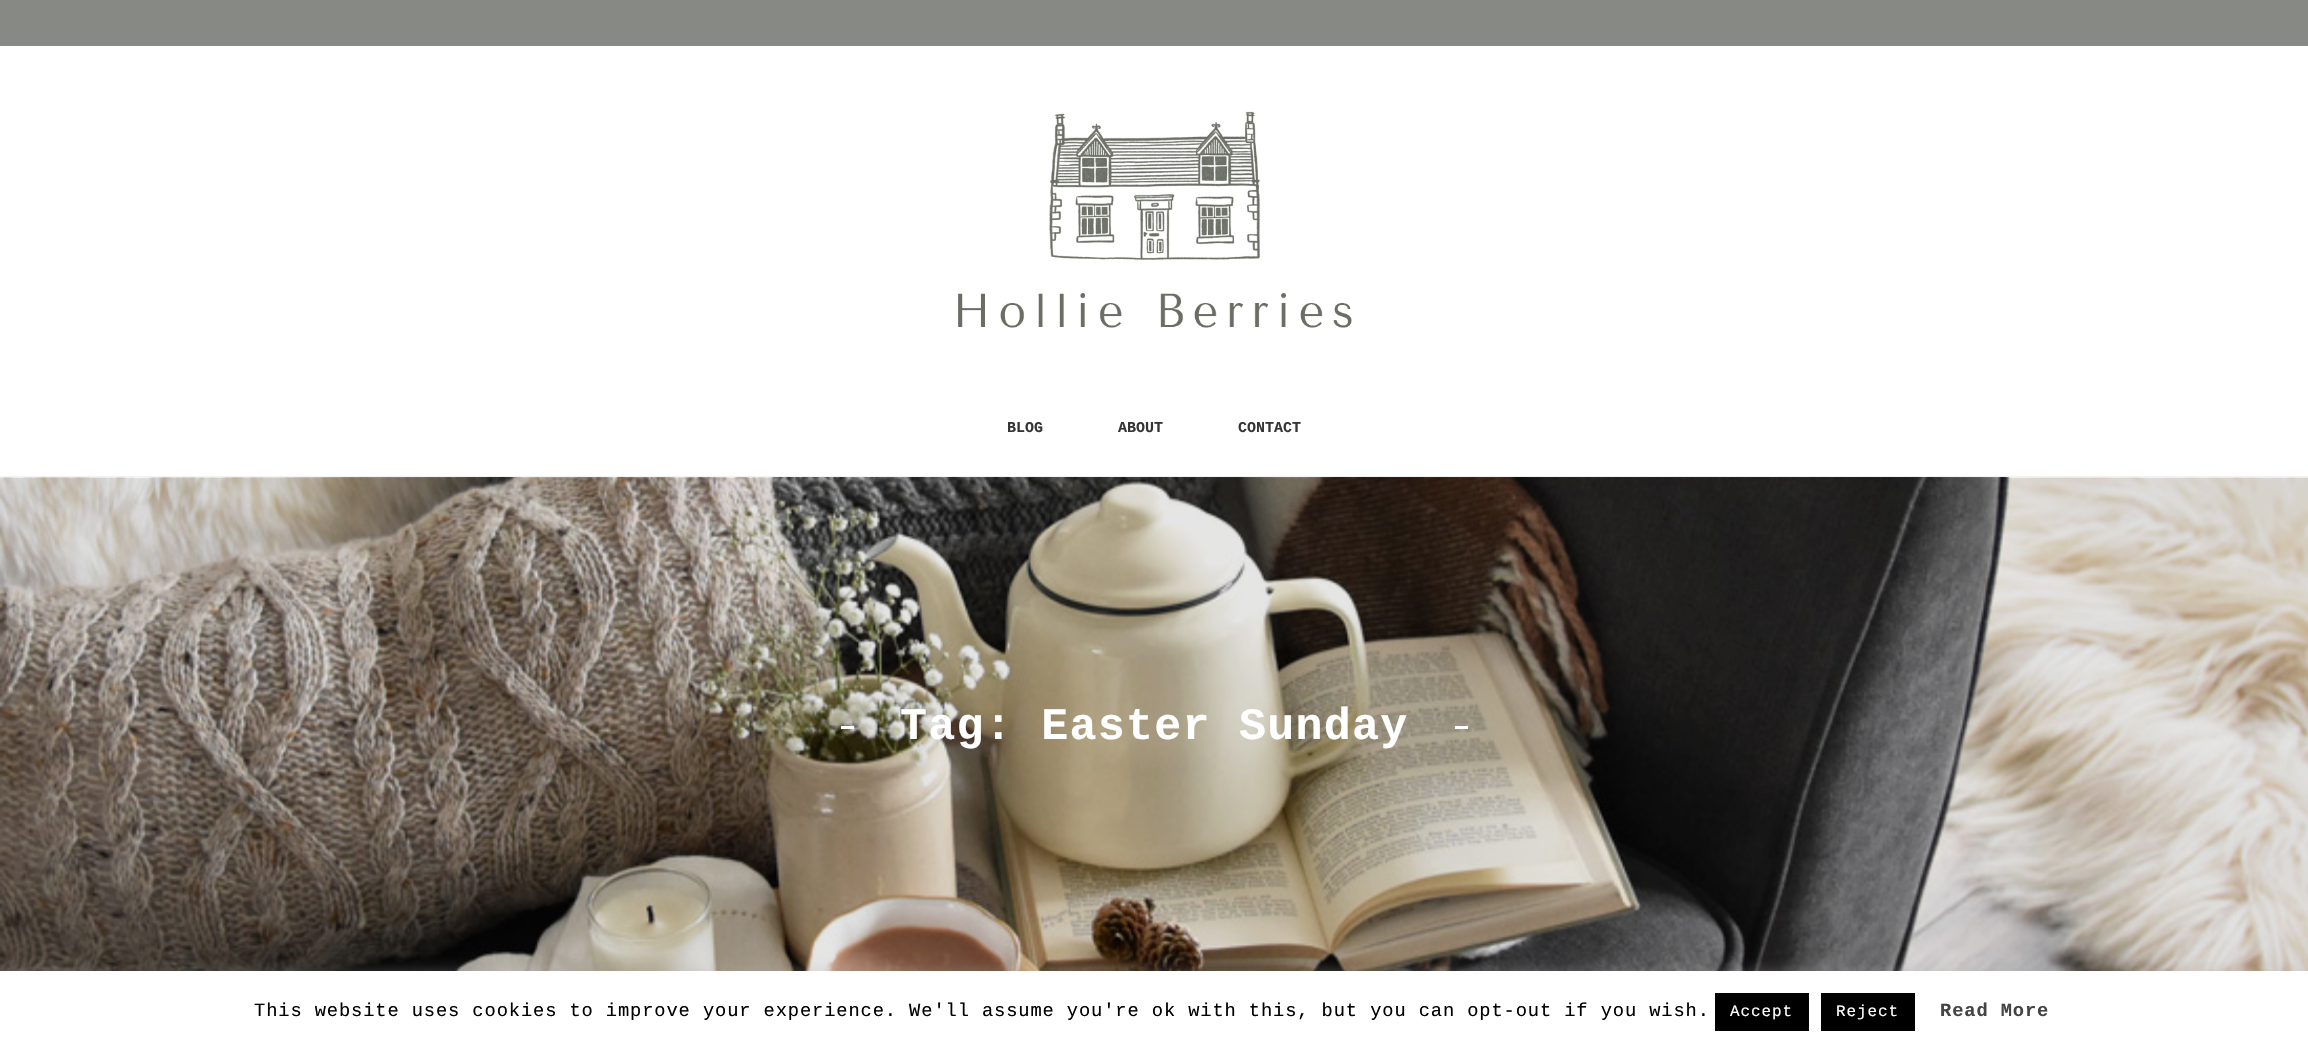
void draw(SkCanvas* canvas) {
    SkPaint paint;
    paint.setAntiAlias(true);
    auto spacedText = [&](const char* s, float x, float y, const SkFont& font, const SkPaint& ink, float letter, float word) {
        std::vector<SkGlyphID> glyphs(font.countText(s, strlen(s), SkTextEncoding::kUTF8));
        std::vector<float> xs(glyphs.size());
        font.textToGlyphs(s, strlen(s), SkTextEncoding::kUTF8, glyphs);
        font.getXPos(glyphs, xs, x);
        float extra = 0;
        for (size_t i = 0; i < glyphs.size(); i++) {
            xs[i] += extra;
            extra += letter + word * (glyphs[i] == font.unicharToGlyph(' '));
        }
        canvas->drawTextBlob(SkTextBlob::MakeFromPosHGlyphs(glyphs, xs, y, font), 0, 0, ink);
    };
    canvas->clear(0xFFFFFFFF);
    paint.setColor(0xFF878A84);
    canvas->drawRect(SkRect::MakeXYWH(0, 0, 2308, 46), paint);
    paint.setColor(0xFFF2F2F2);
    canvas->drawRect(SkRect::MakeXYWH(0, 476, 2308, 1), paint);
    canvas->drawImageRect(SkImages::DeferredFromEncodedData(SkData::MakeFromFileName("img1.png")), SkRect::MakeXYWH(958, 111, 394, 217), SkSamplingOptions());
    SkFont font1(fontMgr->matchFamilyStyle("Liberation Mono", SkFontStyle::Bold()), 15);
    font1.setSubpixel(true);
    paint.setColor(0xFF353535);
    canvas->drawString("BLOG", 1007, 432, font1, paint);
    canvas->drawString("ABOUT", 1118, 432, font1, paint);
    canvas->drawString("CONTACT", 1238, 432, font1, paint);
    canvas->drawImageRect(SkImages::DeferredFromEncodedData(SkData::MakeFromFileName("img2.png")), SkRect::MakeXYWH(0, 477, 2308, 494), SkSamplingOptions());
    paint.setColor(0xFFFFFFFF);
    canvas->drawRect(SkRect::MakeXYWH(841, 726, 13, 3), paint);
    SkFont font2(fontMgr->matchFamilyStyle("Liberation Mono", SkFontStyle::Bold()), 45);
    font2.setSubpixel(true);
    spacedText("Tag: Easter Sunday", 900, 739, font2, paint, 1.25f, 0);
    canvas->drawRect(SkRect::MakeXYWH(1455, 726, 13, 3), paint);
    paint.setColor(0x4DACABAB);
    paint.setMaskFilter(SkMaskFilter::MakeBlur(kNormal_SkBlurStyle, 6));
    canvas->drawRect(SkRect::MakeXYWH(0, 970, 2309, 81), paint);
    paint.setMaskFilter(nullptr);
    paint.setColor(0xFFFFFFFF);
    canvas->drawRect(SkRect::MakeXYWH(0, 971, 2308, 81), paint);
    SkFont font3(fontMgr->matchFamilyStyle("Liberation Mono", SkFontStyle::Normal()), 18.75f);
    font3.setSubpixel(true);
    paint.setColor(0xFF000000);
    spacedText("This website uses cookies to improve your experience. We'll assume you're ok with this, but you can opt-out if you wish.", 254, 1016, font3, paint, 0.88f, 0);
    canvas->drawRect(SkRect::MakeXYWH(1715, 993, 94, 38), paint);
    SkFont font4(fontMgr->matchFamilyStyle("Liberation Mono", SkFontStyle::Normal()), 16);
    font4.setSubpixel(true);
    paint.setColor(0xFFFFFFFF);
    spacedText("Accept", 1730, 1016, font4, paint, 0.88f, 0);
    paint.setColor(0xFF000000);
    canvas->drawRect(SkRect::MakeXYWH(1821, 993, 94, 38), paint);
    paint.setColor(0xFFFFFFFF);
    spacedText("Reject", 1836, 1016, font4, paint, 0.88f, 0);
    SkFont font5(fontMgr->matchFamilyStyle("Liberation Mono", SkFontStyle::Bold()), 18.75f);
    font5.setSubpixel(true);
    paint.setColor(0xFF444444);
    spacedText("Read More", 1940, 1016, font5, paint, 0.88f, 0);
}
